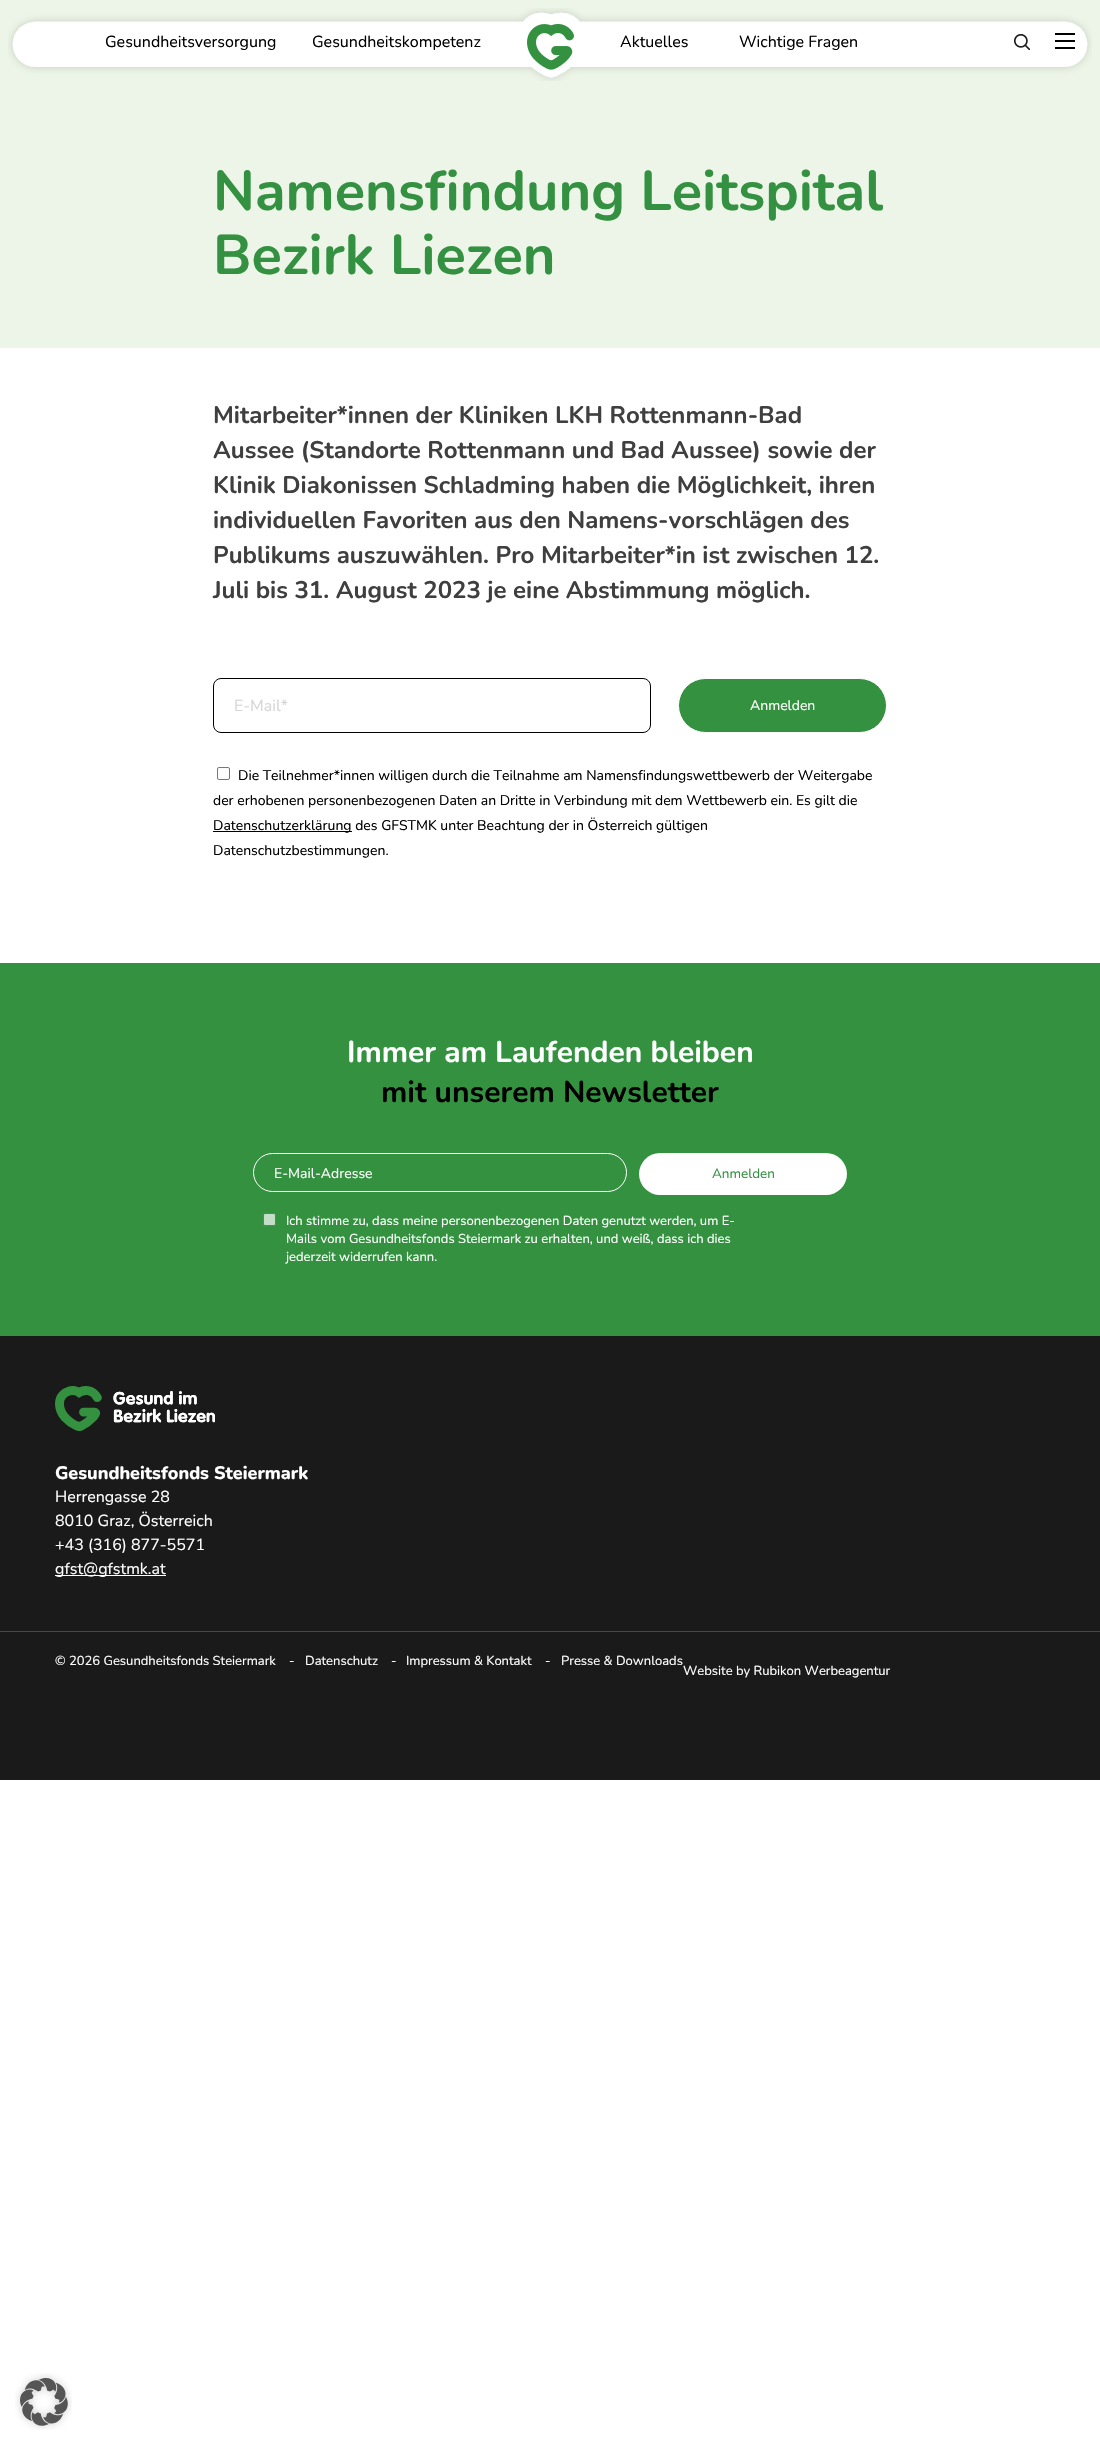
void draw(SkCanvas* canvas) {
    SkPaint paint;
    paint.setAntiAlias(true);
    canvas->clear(0xFFFFFFFF);
    paint.setColor(0xFFECF5E7);
    canvas->drawRect(SkRect::MakeXYWH(0, 0, 1100, 348), paint);
    canvas->drawImageRect(SkImages::DeferredFromEncodedData(SkData::MakeFromFileName("img1.png")), SkRect::MakeXYWH(8, 8, 1084, 73), SkSamplingOptions());
    SkFont font1(fontMgr->matchFamilyStyle("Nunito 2", SkFontStyle(200, SkFontStyle::kNormal_Width, SkFontStyle::kUpright_Slant)), 16);
    font1.setSubpixel(true);
    paint.setColor(0xFF000000);
    canvas->drawString("Gesundheitsversorgung", 105, 47, font1, paint);
    canvas->drawString("Gesundheitskompetenz", 312, 47, font1, paint);
    canvas->drawImageRect(SkImages::DeferredFromEncodedData(SkData::MakeFromFileName("img2.png")), SkRect::MakeXYWH(527, 24, 47, 46), SkSamplingOptions());
    canvas->drawString("Aktuelles", 620, 47, font1, paint);
    canvas->drawString("Wichtige Fragen", 739, 47, font1, paint);
    canvas->drawImageRect(SkImages::DeferredFromEncodedData(SkData::MakeFromFileName("img3.png")), SkRect::MakeXYWH(1014, 34, 16, 16), SkSamplingOptions());
    canvas->drawRect(SkRect::MakeXYWH(1055, 33, 20, 2), paint);
    canvas->drawRect(SkRect::MakeXYWH(1055, 40, 20, 2), paint);
    canvas->drawRect(SkRect::MakeXYWH(1055, 47, 20, 2), paint);
    SkFont font2(fontMgr->matchFamilyStyle("Nunito", SkFontStyle(200, SkFontStyle::kNormal_Width, SkFontStyle::kUpright_Slant)), 56);
    font2.setSubpixel(true);
    paint.setColor(0xFF349141);
    canvas->drawString("Namensfindung Leitspital", 213, 210, font2, paint);
    canvas->drawString("Bezirk Liezen", 213, 274, font2, paint);
    SkFont font3(fontMgr->matchFamilyStyle("Nunito", SkFontStyle(200, SkFontStyle::kNormal_Width, SkFontStyle::kUpright_Slant)), 24);
    font3.setSubpixel(true);
    paint.setColor(0xFF3F3F3F);
    canvas->drawString("Mitarbeiter*innen der Kliniken LKH Rottenmann-Bad", 213, 423, font3, paint);
    canvas->drawString("Aussee (Standorte Rottenmann und Bad Aussee) sowie der", 213, 458, font3, paint);
    canvas->drawString("Klinik Diakonissen Schladming haben die Möglichkeit, ihren", 213, 493, font3, paint);
    canvas->drawString("individuellen Favoriten aus den Namens-vorschlägen des", 213, 528, font3, paint);
    canvas->drawString("Publikums auszuwählen. Pro Mitarbeiter*in ist zwischen 12.", 213, 563, font3, paint);
    canvas->drawString("Juli bis 31. August 2023 je eine Abstimmung möglich.", 213, 598, font3, paint);
    paint.setStyle(SkPaint::kStroke_Style);
    paint.setStrokeWidth(1);
    paint.setColor(0xFF000000);
    canvas->drawRoundRect(SkRect::MakeXYWH(213.5f, 678.5f, 437, 54), 7.5f, 7.5f, paint);
    paint.setStyle(SkPaint::kFill_Style);
    paint.setColor(0xFFD6D6D6);
    canvas->drawString("E-Mail*", 234, 711, font1, paint);
    paint.setColor(0xFF339140);
    canvas->drawRoundRect(SkRect::MakeXYWH(678.5f, 678.5f, 208, 54), 27, 27, paint);
    paint.setStyle(SkPaint::kStroke_Style);
    paint.setColor(0xFFFFFFFF);
    canvas->drawRoundRect(SkRect::MakeXYWH(678.5f, 678.5f, 208, 54), 27, 27, paint);
    SkFont font4(fontMgr->matchFamilyStyle("Nunito 2", SkFontStyle(200, SkFontStyle::kNormal_Width, SkFontStyle::kUpright_Slant)), 14);
    font4.setSubpixel(true);
    paint.setStyle(SkPaint::kFill_Style);
    canvas->drawString("Anmelden", 750, 710, font4, paint);
    paint.setStyle(SkPaint::kStroke_Style);
    paint.setColor(0xFF767676);
    canvas->drawRoundRect(SkRect::MakeXYWH(217.5f, 767.5f, 12, 12), 1.5f, 1.5f, paint);
    paint.setStyle(SkPaint::kFill_Style);
    paint.setColor(0xFF000000);
    canvas->drawString("Die Teilnehmer*innen willigen durch die Teilnahme am Namensfindungswettbewerb der Weitergabe", 238, 780, font4, paint);
    canvas->drawString("der erhobenen personenbezogenen Daten an Dritte in Verbindung mit dem Wettbewerb ein. Es gilt die", 213, 805, font4, paint);
    canvas->drawRect(SkRect::MakeXYWH(213, 831, 139, 1), paint);
    canvas->drawString("Datenschutzerklärung des GFSTMK unter Beachtung der in Österreich gültigen", 213, 830, font4, paint);
    canvas->drawString("Datenschutzbestimmungen.", 213, 855, font4, paint);
    paint.setColor(0xFF339140);
    canvas->drawRect(SkRect::MakeXYWH(0, 963, 1100, 373), paint);
    SkFont font5(fontMgr->matchFamilyStyle("Nunito", SkFontStyle(200, SkFontStyle::kNormal_Width, SkFontStyle::kUpright_Slant)), 30);
    font5.setSubpixel(true);
    paint.setColor(0xFFFFFFFF);
    canvas->drawString("Immer am Laufenden bleiben", 347, 1062, font5, paint);
    paint.setColor(0xFF000000);
    canvas->drawString("mit unserem Newsletter", 381, 1102, font5, paint);
    paint.setStyle(SkPaint::kStroke_Style);
    paint.setColor(0xFFFFFFFF);
    canvas->drawRoundRect(SkRect::MakeXYWH(253.5f, 1153.5f, 373, 38), 19, 19, paint);
    paint.setStyle(SkPaint::kFill_Style);
    canvas->drawString("E-Mail-Adresse", 274, 1178, font4, paint);
    canvas->drawRoundRect(SkRect::MakeXYWH(639, 1153, 208, 42), 21, 21, paint);
    SkFont font6(fontMgr->matchFamilyStyle("Nunito 2", SkFontStyle(200, SkFontStyle::kNormal_Width, SkFontStyle::kUpright_Slant)), 13.5f);
    font6.setSubpixel(true);
    paint.setColor(0xFF349141);
    canvas->drawString("Anmelden", 712, 1178, font6, paint);
    paint.setColor(0xFFC2DEC6);
    canvas->drawRoundRect(SkRect::MakeXYWH(263.5f, 1213.5f, 12, 12), 1.5f, 1.5f, paint);
    paint.setStyle(SkPaint::kStroke_Style);
    paint.setColor(0xFF627E66);
    canvas->drawRoundRect(SkRect::MakeXYWH(263.5f, 1213.5f, 12, 12), 1.5f, 1.5f, paint);
    SkFont font7(fontMgr->matchFamilyStyle("Nunito 2", SkFontStyle(200, SkFontStyle::kNormal_Width, SkFontStyle::kUpright_Slant)), 13);
    font7.setSubpixel(true);
    paint.setStyle(SkPaint::kFill_Style);
    paint.setColor(0xFFFFFFFF);
    canvas->drawString("Ich stimme zu, dass meine personenbezogenen Daten genutzt werden, um E-", 286, 1225, font7, paint);
    canvas->drawString("Mails vom Gesundheitsfonds Steiermark zu erhalten, und weiß, dass ich dies", 286, 1243, font7, paint);
    canvas->drawString("jederzeit widerrufen kann.", 286, 1261, font7, paint);
    paint.setColor(0xFF1A1A1A);
    canvas->drawRect(SkRect::MakeXYWH(0, 1336, 1100, 295), paint);
    canvas->drawImageRect(SkImages::DeferredFromEncodedData(SkData::MakeFromFileName("img4.png")), SkRect::MakeXYWH(55, 1386, 160, 45), SkSamplingOptions());
    SkFont font8(fontMgr->matchFamilyStyle("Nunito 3", SkFontStyle(200, SkFontStyle::kNormal_Width, SkFontStyle::kUpright_Slant)), 18);
    font8.setSubpixel(true);
    paint.setColor(0xFFFFFFFF);
    canvas->drawString("Gesundheitsfonds Steiermark", 55, 1479, font8, paint);
    canvas->drawString("Herrengasse 28", 55, 1502, font1, paint);
    canvas->drawString("8010 Graz, Österreich", 55, 1526, font1, paint);
    canvas->drawString("+43 (316) 877-5571", 55, 1550, font1, paint);
    canvas->drawRect(SkRect::MakeXYWH(55, 1575, 111, 1), paint);
    canvas->drawString("gfst@gfstmk.at", 55, 1574, font1, paint);
    paint.setColor(0xFF1A1A1A);
    canvas->drawRect(SkRect::MakeXYWH(0, 1632, 1100, 148), paint);
    paint.setColor(0xFF484848);
    canvas->drawRect(SkRect::MakeXYWH(0, 1631, 1100, 1), paint);
    paint.setColor(0xFFFFFFFF);
    canvas->drawString("© 2026 Gesundheitsfonds Steiermark", 55, 1665, font7, paint);
    canvas->drawString("-", 289, 1665, font7, paint);
    canvas->drawString("Datenschutz", 305, 1665, font7, paint);
    canvas->drawString("-", 391, 1665, font7, paint);
    canvas->drawString("Impressum & Kontakt", 406, 1665, font7, paint);
    canvas->drawString("-", 545, 1665, font7, paint);
    canvas->drawString("Presse & Downloads", 561, 1665, font7, paint);
    canvas->drawString("Website by Rubikon Werbeagentur", 683, 1675, font7, paint);
    canvas->drawImageRect(SkImages::DeferredFromEncodedData(SkData::MakeFromFileName("img5.png")), SkRect::MakeXYWH(15, 2373, 57, 57), SkSamplingOptions());
}
